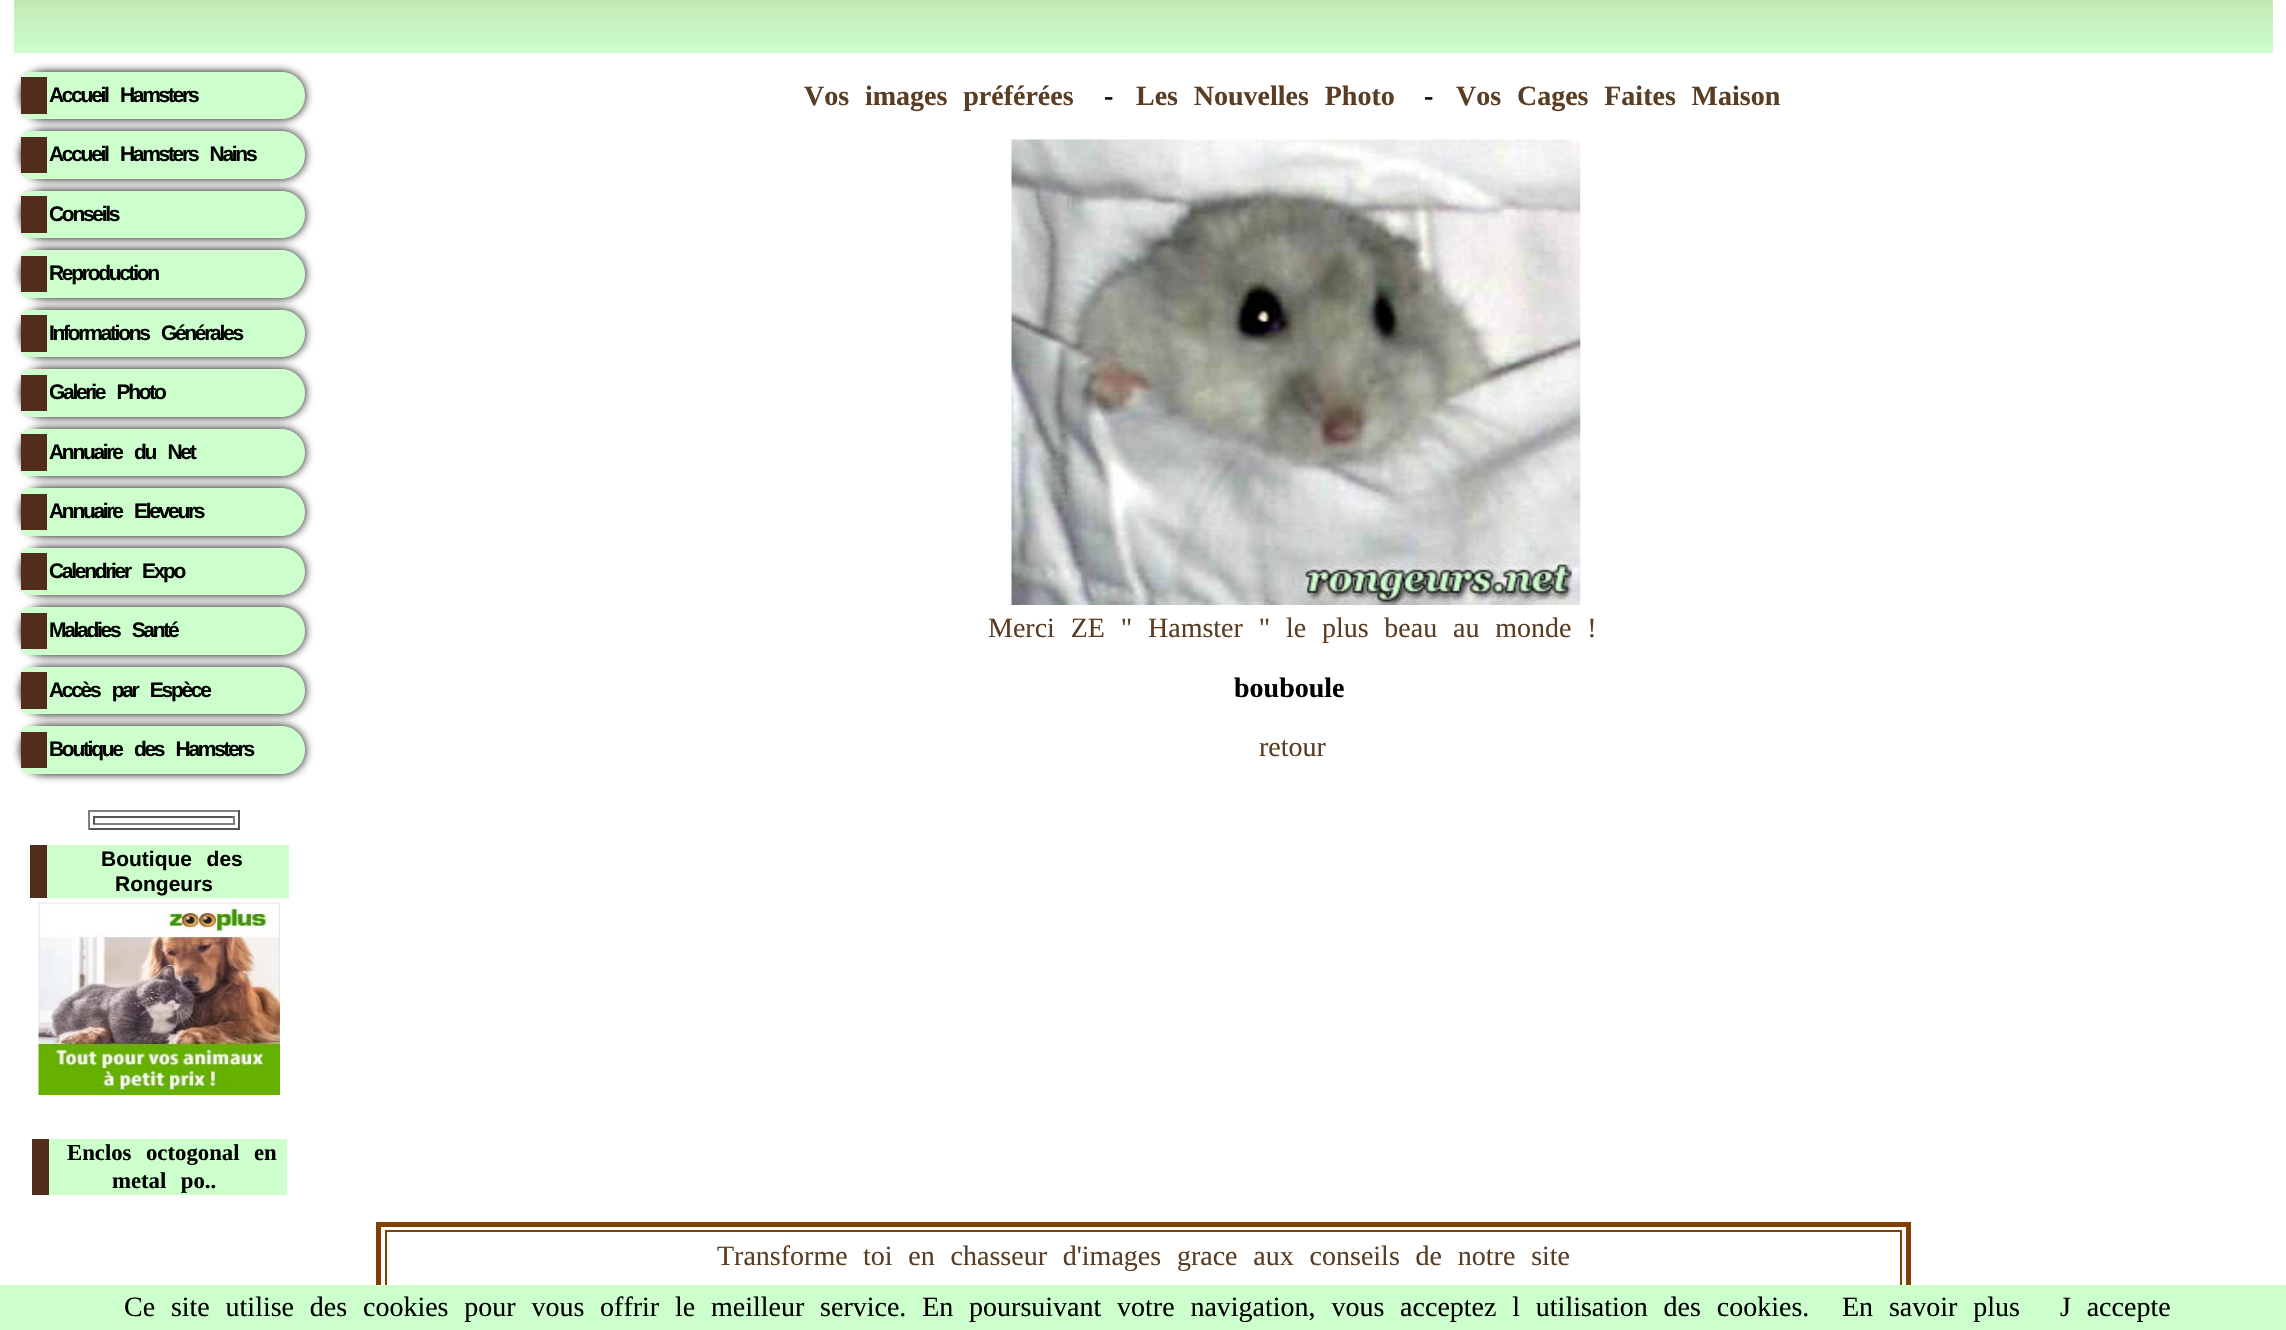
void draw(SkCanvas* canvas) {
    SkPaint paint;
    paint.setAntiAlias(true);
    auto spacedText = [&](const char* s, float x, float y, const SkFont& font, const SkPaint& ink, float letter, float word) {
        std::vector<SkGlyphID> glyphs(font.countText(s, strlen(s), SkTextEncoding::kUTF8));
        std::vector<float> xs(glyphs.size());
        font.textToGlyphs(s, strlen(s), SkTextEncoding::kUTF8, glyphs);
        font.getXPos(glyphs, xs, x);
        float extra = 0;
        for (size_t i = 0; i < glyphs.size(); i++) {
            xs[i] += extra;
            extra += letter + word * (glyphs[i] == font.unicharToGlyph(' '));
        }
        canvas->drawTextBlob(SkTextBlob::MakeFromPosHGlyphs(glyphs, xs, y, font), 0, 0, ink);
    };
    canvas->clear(0xFFFFFFFF);
    {
        const SkColor colors[] = {0xFF996633, 0xFFCCFFCC};
        const float stops[] = {0, 1};
        const SkPoint ends[] = {{14, -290}, {14, 53}};
        paint.setShader(SkGradientShader::MakeLinear(ends, colors, stops, 2, SkTileMode::kClamp));
        paint.setAlpha(255);
    }
    canvas->drawRect(SkRect::MakeXYWH(14, 0, 2259, 53), paint);
    paint.setShader(nullptr);
    paint.setColor(0xFF000000);
    paint.setMaskFilter(SkMaskFilter::MakeBlur(kNormal_SkBlurStyle, 5));
    canvas->drawRoundRect(SkRect::MakeXYWH(21, 72, 284, 47), 23.5f, 23.5f, paint);
    paint.setMaskFilter(nullptr);
    paint.setColor(0xFFCCFFCC);
    canvas->drawPath(SkPathBuilder().moveTo(30, 72).lineTo(281.5f, 72).cubicTo(294.5f, 72, 305, 82.5f, 305, 95.5f).cubicTo(305, 108.5f, 294.5f, 119, 281.5f, 119).lineTo(30, 119).cubicTo(25, 119, 21, 115, 21, 110).lineTo(21, 81).cubicTo(21, 76, 25, 72, 30, 72).close().detach(), paint);
    paint.setColor(0xFF522C1D);
    canvas->drawRect(SkRect::MakeXYWH(21, 77, 26, 37), paint);
    SkFont font1(fontMgr->matchFamilyStyle("Liberation Sans", SkFontStyle::Bold()), 21);
    font1.setSubpixel(true);
    paint.setColor(0xFF000000);
    spacedText("Accueil", 49, 102, font1, paint, -2.3f, 0);
    spacedText("Hamsters", 120, 102, font1, paint, -2.3f, 0);
    paint.setMaskFilter(SkMaskFilter::MakeBlur(kNormal_SkBlurStyle, 5));
    canvas->drawRoundRect(SkRect::MakeXYWH(21, 131, 284, 48), 24, 24, paint);
    paint.setMaskFilter(nullptr);
    paint.setColor(0xFFCCFFCC);
    canvas->drawPath(SkPathBuilder().moveTo(30, 131).lineTo(281, 131).cubicTo(294.5f, 131, 305, 141.5f, 305, 155).cubicTo(305, 168.5f, 294.5f, 179, 281, 179).lineTo(30, 179).cubicTo(25, 179, 21, 175, 21, 170).lineTo(21, 140).cubicTo(21, 135, 25, 131, 30, 131).close().detach(), paint);
    paint.setColor(0xFF522C1D);
    canvas->drawRect(SkRect::MakeXYWH(21, 137, 26, 36), paint);
    paint.setColor(0xFF000000);
    spacedText("Accueil Hamsters Nains", 49, 161, font1, paint, -2.3f, 8.8f);
    paint.setMaskFilter(SkMaskFilter::MakeBlur(kNormal_SkBlurStyle, 5));
    canvas->drawRoundRect(SkRect::MakeXYWH(21, 191, 284, 47), 23.5f, 23.5f, paint);
    paint.setMaskFilter(nullptr);
    paint.setColor(0xFFCCFFCC);
    canvas->drawPath(SkPathBuilder().moveTo(30, 191).lineTo(281.5f, 191).cubicTo(294.5f, 191, 305, 201.5f, 305, 214.5f).cubicTo(305, 227.5f, 294.5f, 238, 281.5f, 238).lineTo(30, 238).cubicTo(25, 238, 21, 234, 21, 229).lineTo(21, 200).cubicTo(21, 195, 25, 191, 30, 191).close().detach(), paint);
    paint.setColor(0xFF522C1D);
    canvas->drawRect(SkRect::MakeXYWH(21, 196, 26, 37), paint);
    paint.setColor(0xFF000000);
    spacedText("Conseils", 49, 221, font1, paint, -2.3f, 0);
    paint.setMaskFilter(SkMaskFilter::MakeBlur(kNormal_SkBlurStyle, 5));
    canvas->drawRoundRect(SkRect::MakeXYWH(21, 250, 284, 48), 24, 24, paint);
    paint.setMaskFilter(nullptr);
    paint.setColor(0xFFCCFFCC);
    canvas->drawPath(SkPathBuilder().moveTo(30, 250).lineTo(281, 250).cubicTo(294.5f, 250, 305, 260.5f, 305, 274).cubicTo(305, 287.5f, 294.5f, 298, 281, 298).lineTo(30, 298).cubicTo(25, 298, 21, 294, 21, 289).lineTo(21, 259).cubicTo(21, 254, 25, 250, 30, 250).close().detach(), paint);
    paint.setColor(0xFF522C1D);
    canvas->drawRect(SkRect::MakeXYWH(21, 256, 26, 36), paint);
    paint.setColor(0xFF000000);
    spacedText("Reproduction", 49, 280, font1, paint, -2.3f, 0);
    paint.setMaskFilter(SkMaskFilter::MakeBlur(kNormal_SkBlurStyle, 5));
    canvas->drawRoundRect(SkRect::MakeXYWH(21, 310, 284, 47), 23.5f, 23.5f, paint);
    paint.setMaskFilter(nullptr);
    paint.setColor(0xFFCCFFCC);
    canvas->drawPath(SkPathBuilder().moveTo(30, 310).lineTo(281.5f, 310).cubicTo(294.5f, 310, 305, 320.5f, 305, 333.5f).cubicTo(305, 346.5f, 294.5f, 357, 281.5f, 357).lineTo(30, 357).cubicTo(25, 357, 21, 353, 21, 348).lineTo(21, 319).cubicTo(21, 314, 25, 310, 30, 310).close().detach(), paint);
    paint.setColor(0xFF522C1D);
    canvas->drawRect(SkRect::MakeXYWH(21, 315, 26, 37), paint);
    paint.setColor(0xFF000000);
    spacedText("Informations Générales", 49, 340, font1, paint, -2.3f, 8.8f);
    paint.setMaskFilter(SkMaskFilter::MakeBlur(kNormal_SkBlurStyle, 5));
    canvas->drawRoundRect(SkRect::MakeXYWH(21, 369, 284, 48), 24, 24, paint);
    paint.setMaskFilter(nullptr);
    paint.setColor(0xFFCCFFCC);
    canvas->drawPath(SkPathBuilder().moveTo(30, 369).lineTo(281, 369).cubicTo(294.5f, 369, 305, 379.5f, 305, 393).cubicTo(305, 406.5f, 294.5f, 417, 281, 417).lineTo(30, 417).cubicTo(25, 417, 21, 413, 21, 408).lineTo(21, 378).cubicTo(21, 373, 25, 369, 30, 369).close().detach(), paint);
    paint.setColor(0xFF522C1D);
    canvas->drawRect(SkRect::MakeXYWH(21, 375, 26, 36), paint);
    paint.setColor(0xFF000000);
    spacedText("Galerie Photo", 49, 399, font1, paint, -2.3f, 8.8f);
    paint.setMaskFilter(SkMaskFilter::MakeBlur(kNormal_SkBlurStyle, 5));
    canvas->drawRoundRect(SkRect::MakeXYWH(21, 429, 284, 47), 23.5f, 23.5f, paint);
    paint.setMaskFilter(nullptr);
    paint.setColor(0xFFCCFFCC);
    canvas->drawPath(SkPathBuilder().moveTo(30, 429).lineTo(281.5f, 429).cubicTo(294.5f, 429, 305, 439.5f, 305, 452.5f).cubicTo(305, 465.5f, 294.5f, 476, 281.5f, 476).lineTo(30, 476).cubicTo(25, 476, 21, 472, 21, 467).lineTo(21, 438).cubicTo(21, 433, 25, 429, 30, 429).close().detach(), paint);
    paint.setColor(0xFF522C1D);
    canvas->drawRect(SkRect::MakeXYWH(21, 434, 26, 37), paint);
    paint.setColor(0xFF000000);
    spacedText("Annuaire", 49, 459, font1, paint, -2.3f, 0);
    spacedText("du Net", 134, 459, font1, paint, -2.3f, 8.8f);
    paint.setMaskFilter(SkMaskFilter::MakeBlur(kNormal_SkBlurStyle, 5));
    canvas->drawRoundRect(SkRect::MakeXYWH(21, 488, 284, 48), 24, 24, paint);
    paint.setMaskFilter(nullptr);
    paint.setColor(0xFFCCFFCC);
    canvas->drawPath(SkPathBuilder().moveTo(30, 488).lineTo(281, 488).cubicTo(294.5f, 488, 305, 498.5f, 305, 512).cubicTo(305, 525.5f, 294.5f, 536, 281, 536).lineTo(30, 536).cubicTo(25, 536, 21, 532, 21, 527).lineTo(21, 497).cubicTo(21, 492, 25, 488, 30, 488).close().detach(), paint);
    paint.setColor(0xFF522C1D);
    canvas->drawRect(SkRect::MakeXYWH(21, 494, 26, 36), paint);
    paint.setColor(0xFF000000);
    spacedText("Annuaire", 49, 518, font1, paint, -2.3f, 0);
    spacedText("Eleveurs", 134, 518, font1, paint, -2.3f, 0);
    paint.setMaskFilter(SkMaskFilter::MakeBlur(kNormal_SkBlurStyle, 5));
    canvas->drawRoundRect(SkRect::MakeXYWH(21, 548, 284, 47), 23.5f, 23.5f, paint);
    paint.setMaskFilter(nullptr);
    paint.setColor(0xFFCCFFCC);
    canvas->drawPath(SkPathBuilder().moveTo(30, 548).lineTo(281.5f, 548).cubicTo(294.5f, 548, 305, 558.5f, 305, 571.5f).cubicTo(305, 584.5f, 294.5f, 595, 281.5f, 595).lineTo(30, 595).cubicTo(25, 595, 21, 591, 21, 586).lineTo(21, 557).cubicTo(21, 552, 25, 548, 30, 548).close().detach(), paint);
    paint.setColor(0xFF522C1D);
    canvas->drawRect(SkRect::MakeXYWH(21, 553, 26, 37), paint);
    paint.setColor(0xFF000000);
    spacedText("Calendrier", 49, 578, font1, paint, -2.3f, 0);
    spacedText("Expo", 142, 578, font1, paint, -2.3f, 0);
    paint.setMaskFilter(SkMaskFilter::MakeBlur(kNormal_SkBlurStyle, 5));
    canvas->drawRoundRect(SkRect::MakeXYWH(21, 607, 284, 48), 24, 24, paint);
    paint.setMaskFilter(nullptr);
    paint.setColor(0xFFCCFFCC);
    canvas->drawPath(SkPathBuilder().moveTo(30, 607).lineTo(281, 607).cubicTo(294.5f, 607, 305, 617.5f, 305, 631).cubicTo(305, 644.5f, 294.5f, 655, 281, 655).lineTo(30, 655).cubicTo(25, 655, 21, 651, 21, 646).lineTo(21, 616).cubicTo(21, 611, 25, 607, 30, 607).close().detach(), paint);
    paint.setColor(0xFF522C1D);
    canvas->drawRect(SkRect::MakeXYWH(21, 613, 26, 36), paint);
    paint.setColor(0xFF000000);
    spacedText("Maladies Santé", 49, 637, font1, paint, -2.3f, 8.8f);
    paint.setMaskFilter(SkMaskFilter::MakeBlur(kNormal_SkBlurStyle, 5));
    canvas->drawRoundRect(SkRect::MakeXYWH(21, 667, 284, 47), 23.5f, 23.5f, paint);
    paint.setMaskFilter(nullptr);
    paint.setColor(0xFFCCFFCC);
    canvas->drawPath(SkPathBuilder().moveTo(30, 667).lineTo(281.5f, 667).cubicTo(294.5f, 667, 305, 677.5f, 305, 690.5f).cubicTo(305, 703.5f, 294.5f, 714, 281.5f, 714).lineTo(30, 714).cubicTo(25, 714, 21, 710, 21, 705).lineTo(21, 676).cubicTo(21, 671, 25, 667, 30, 667).close().detach(), paint);
    paint.setColor(0xFF522C1D);
    canvas->drawRect(SkRect::MakeXYWH(21, 672, 26, 37), paint);
    paint.setColor(0xFF000000);
    spacedText("Accès par Espèce", 49, 697, font1, paint, -2.3f, 8.8f);
    paint.setMaskFilter(SkMaskFilter::MakeBlur(kNormal_SkBlurStyle, 5));
    canvas->drawRoundRect(SkRect::MakeXYWH(21, 726, 284, 48), 24, 24, paint);
    paint.setMaskFilter(nullptr);
    paint.setColor(0xFFCCFFCC);
    canvas->drawPath(SkPathBuilder().moveTo(30, 726).lineTo(281, 726).cubicTo(294.5f, 726, 305, 736.5f, 305, 750).cubicTo(305, 763.5f, 294.5f, 774, 281, 774).lineTo(30, 774).cubicTo(25, 774, 21, 770, 21, 765).lineTo(21, 735).cubicTo(21, 730, 25, 726, 30, 726).close().detach(), paint);
    paint.setColor(0xFF522C1D);
    canvas->drawRect(SkRect::MakeXYWH(21, 732, 26, 36), paint);
    paint.setColor(0xFF000000);
    spacedText("Boutique des Hamsters", 49, 756, font1, paint, -2.3f, 8.8f);
    paint.setColor(0xFF808080);
    canvas->drawRect(SkRect::MakeXYWH(88, 810, 152, 2), paint);
    paint.setColor(0xFF555555);
    canvas->drawRect(SkRect::MakeXYWH(238, 810, 2, 20), paint);
    canvas->drawRect(SkRect::MakeXYWH(88, 828, 152, 2), paint);
    paint.setColor(0xFF808080);
    canvas->drawRect(SkRect::MakeXYWH(88, 810, 2, 20), paint);
    paint.setColor(0xFF555555);
    canvas->drawRect(SkRect::MakeXYWH(93, 816, 142, 2), paint);
    paint.setColor(0xFF808080);
    canvas->drawRect(SkRect::MakeXYWH(233, 816, 2, 8), paint);
    canvas->drawRect(SkRect::MakeXYWH(93, 823, 142, 2), paint);
    paint.setColor(0xFF555555);
    canvas->drawRect(SkRect::MakeXYWH(93, 816, 2, 8), paint);
    paint.setColor(0xFFCCFFCC);
    canvas->drawRect(SkRect::MakeXYWH(47, 845, 242, 53), paint);
    paint.setColor(0xFF522C1D);
    canvas->drawRect(SkRect::MakeXYWH(30, 845, 17, 53), paint);
    paint.setColor(0xFF000000);
    spacedText("Boutique des", 101, 866, font1, paint, 0, 8.8f);
    canvas->drawString("Rongeurs", 115, 891, font1, paint);
    canvas->drawImageRect(SkImages::DeferredFromEncodedData(SkData::MakeFromFileName("img1.png")), SkRect::MakeXYWH(38, 902, 242, 193), SkSamplingOptions());
    paint.setColor(0xFFCCFFCC);
    canvas->drawRect(SkRect::MakeXYWH(49, 1139, 238, 56), paint);
    paint.setColor(0xFF522C1D);
    canvas->drawRect(SkRect::MakeXYWH(32, 1139, 17, 56), paint);
    SkFont font2(fontMgr->matchFamilyStyle("Liberation Serif", SkFontStyle::Bold()), 22.75f);
    font2.setSubpixel(true);
    paint.setColor(0xFF000000);
    spacedText("Enclos octogonal en", 67, 1160, font2, paint, 0, 8.8f);
    spacedText("metal po..", 112, 1188, font2, paint, 0, 8.8f);
    SkFont font3(fontMgr->matchFamilyStyle("Liberation Serif", SkFontStyle::Bold()), 28);
    font3.setSubpixel(true);
    paint.setColor(0xFF5B3D23);
    canvas->drawString("Vos", 804, 105, font3, paint);
    spacedText("images préférées", 865, 105, font3, paint, 0, 8.8f);
    paint.setColor(0xFF000000);
    canvas->drawString("-", 1104, 105, font3, paint);
    paint.setColor(0xFF5B3D23);
    spacedText("Les Nouvelles Photo", 1136, 105, font3, paint, 0, 8.8f);
    paint.setColor(0xFF000000);
    canvas->drawString("-", 1424, 105, font3, paint);
    paint.setColor(0xFF5B3D23);
    spacedText("Vos Cages Faites Maison", 1456, 105, font3, paint, 0, 8.8f);
    canvas->drawImageRect(SkImages::DeferredFromEncodedData(SkData::MakeFromFileName("img2.png")), SkRect::MakeXYWH(1011, 139, 570, 466), SkSamplingOptions());
    SkFont font4(fontMgr->matchFamilyStyle("Liberation Serif", SkFontStyle::Normal()), 28);
    font4.setSubpixel(true);
    spacedText("Merci ZE \"", 988, 637, font4, paint, 0, 8.8f);
    spacedText("Hamster \" le plus beau au monde !", 1148, 637, font4, paint, 0, 8.8f);
    paint.setColor(0xFF000000);
    canvas->drawString("bouboule", 1234, 697, font3, paint);
    paint.setColor(0xFF5B3D23);
    canvas->drawString("retour", 1259, 756, font4, paint);
    paint.setStyle(SkPaint::kStroke_Style);
    paint.setStrokeWidth(5);
    paint.setColor(0xFF804000);
    canvas->drawRect(SkRect::MakeXYWH(378.5f, 1224.5f, 1530, 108), paint);
    paint.setStrokeWidth(2);
    canvas->drawRect(SkRect::MakeXYWH(386, 1231, 1515, 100), paint);
    paint.setStyle(SkPaint::kFill_Style);
    paint.setColor(0xFF5B3D23);
    canvas->drawString("Transforme", 717, 1265, font4, paint);
    spacedText("toi en chasseur d'images grace aux conseils de notre site", 863, 1265, font4, paint, 0, 8.8f);
    paint.setColor(0xFFCCFFCC);
    canvas->drawRect(SkRect::MakeXYWH(0, 1285, 2286, 45), paint);
    paint.setColor(0xFF000000);
    spacedText("Ce site utilise des cookies pour vous offrir le meilleur service. En poursuivant votre navigation, vous acceptez l utilisation des cookies.", 124, 1316, font4, paint, 0, 8.8f);
    spacedText("En savoir plus", 1842, 1316, font4, paint, 0, 8.8f);
    spacedText("J accepte", 2060, 1316, font4, paint, 0, 8.8f);
}
